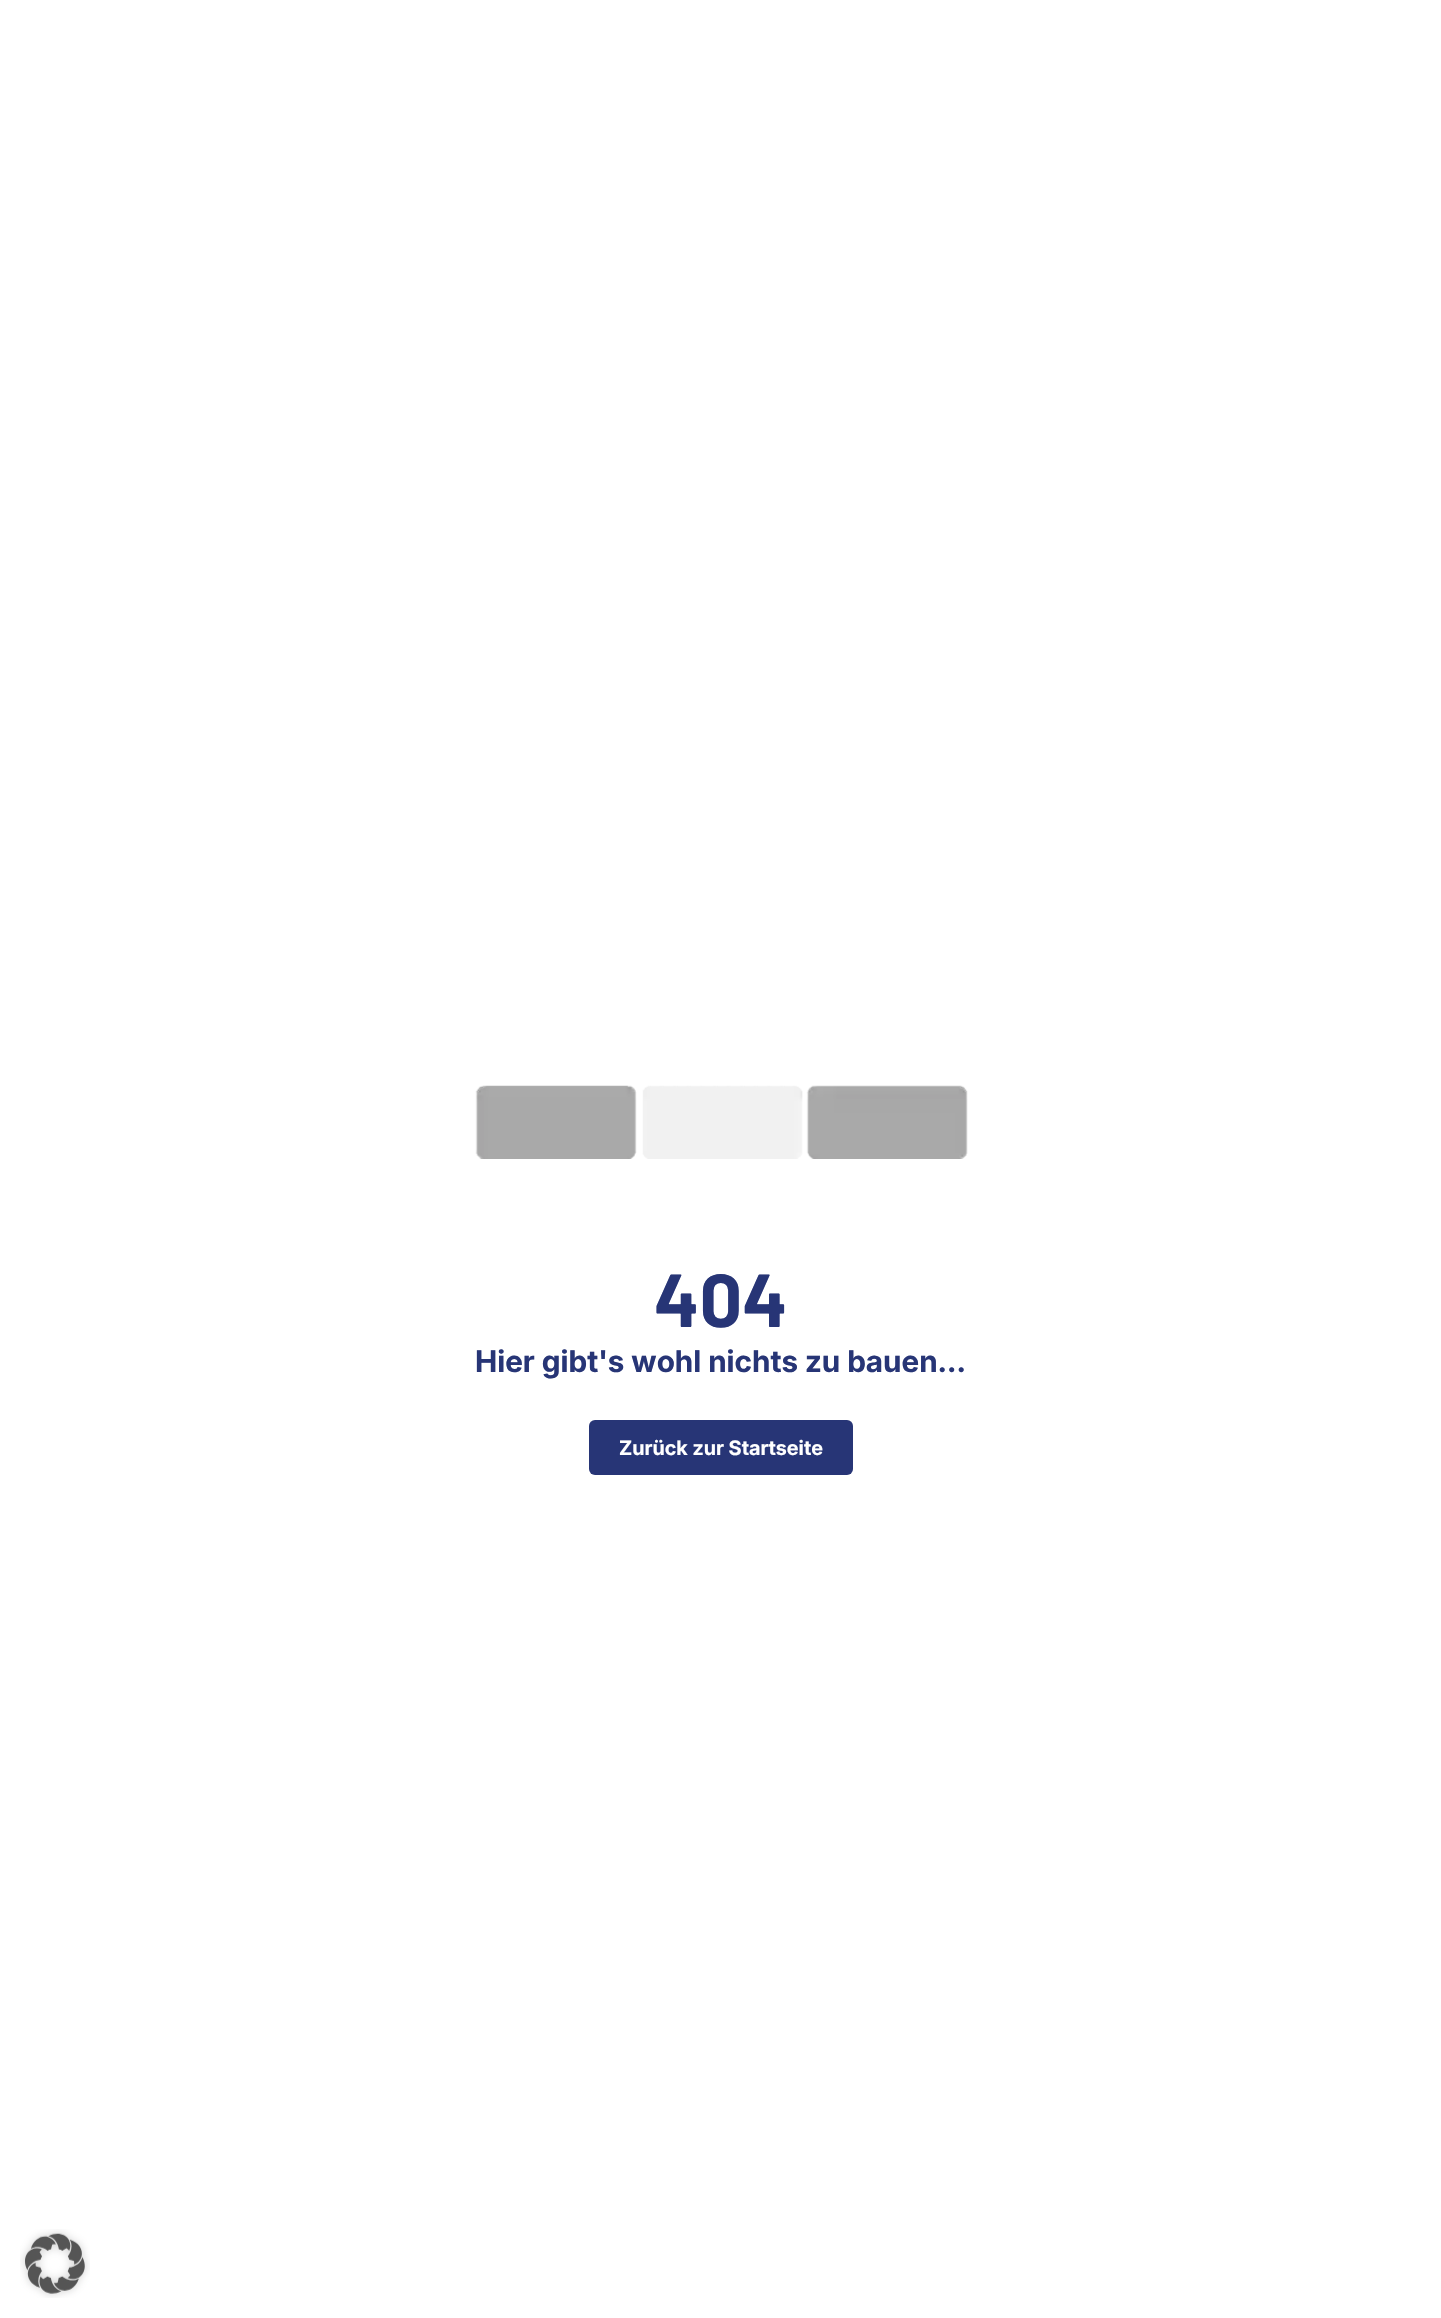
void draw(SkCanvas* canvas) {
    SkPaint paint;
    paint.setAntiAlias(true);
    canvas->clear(0xFFFFFFFF);
    canvas->drawImageRect(SkImages::DeferredFromEncodedData(SkData::MakeFromFileName("img1.png")), SkRect::MakeXYWH(475, 1085, 493, 74), SkSamplingOptions());
    SkFont font1(fontMgr->matchFamilyStyle("Barlow", SkFontStyle::Bold()), 75);
    font1.setSubpixel(true);
    paint.setColor(0xFF273576);
    canvas->drawString("404", 654, 1327, font1, paint);
    SkFont font2(fontMgr->matchFamilyStyle("Inter", SkFontStyle::Bold()), 30);
    font2.setSubpixel(true);
    canvas->drawString("Hier gibt's wohl nichts zu bauen...", 475, 1372, font2, paint);
    canvas->drawRoundRect(SkRect::MakeXYWH(589, 1420, 264, 55), 6, 6, paint);
    SkFont font3(fontMgr->matchFamilyStyle("Inter", SkFontStyle::Bold()), 20);
    font3.setSubpixel(true);
    paint.setColor(0xFFFFFFFF);
    canvas->drawString("Zurück zur Startseite", 619, 1455, font3, paint);
    canvas->drawImageRect(SkImages::DeferredFromEncodedData(SkData::MakeFromFileName("img2.png")), SkRect::MakeXYWH(20, 2229, 70, 69), SkSamplingOptions());
}
